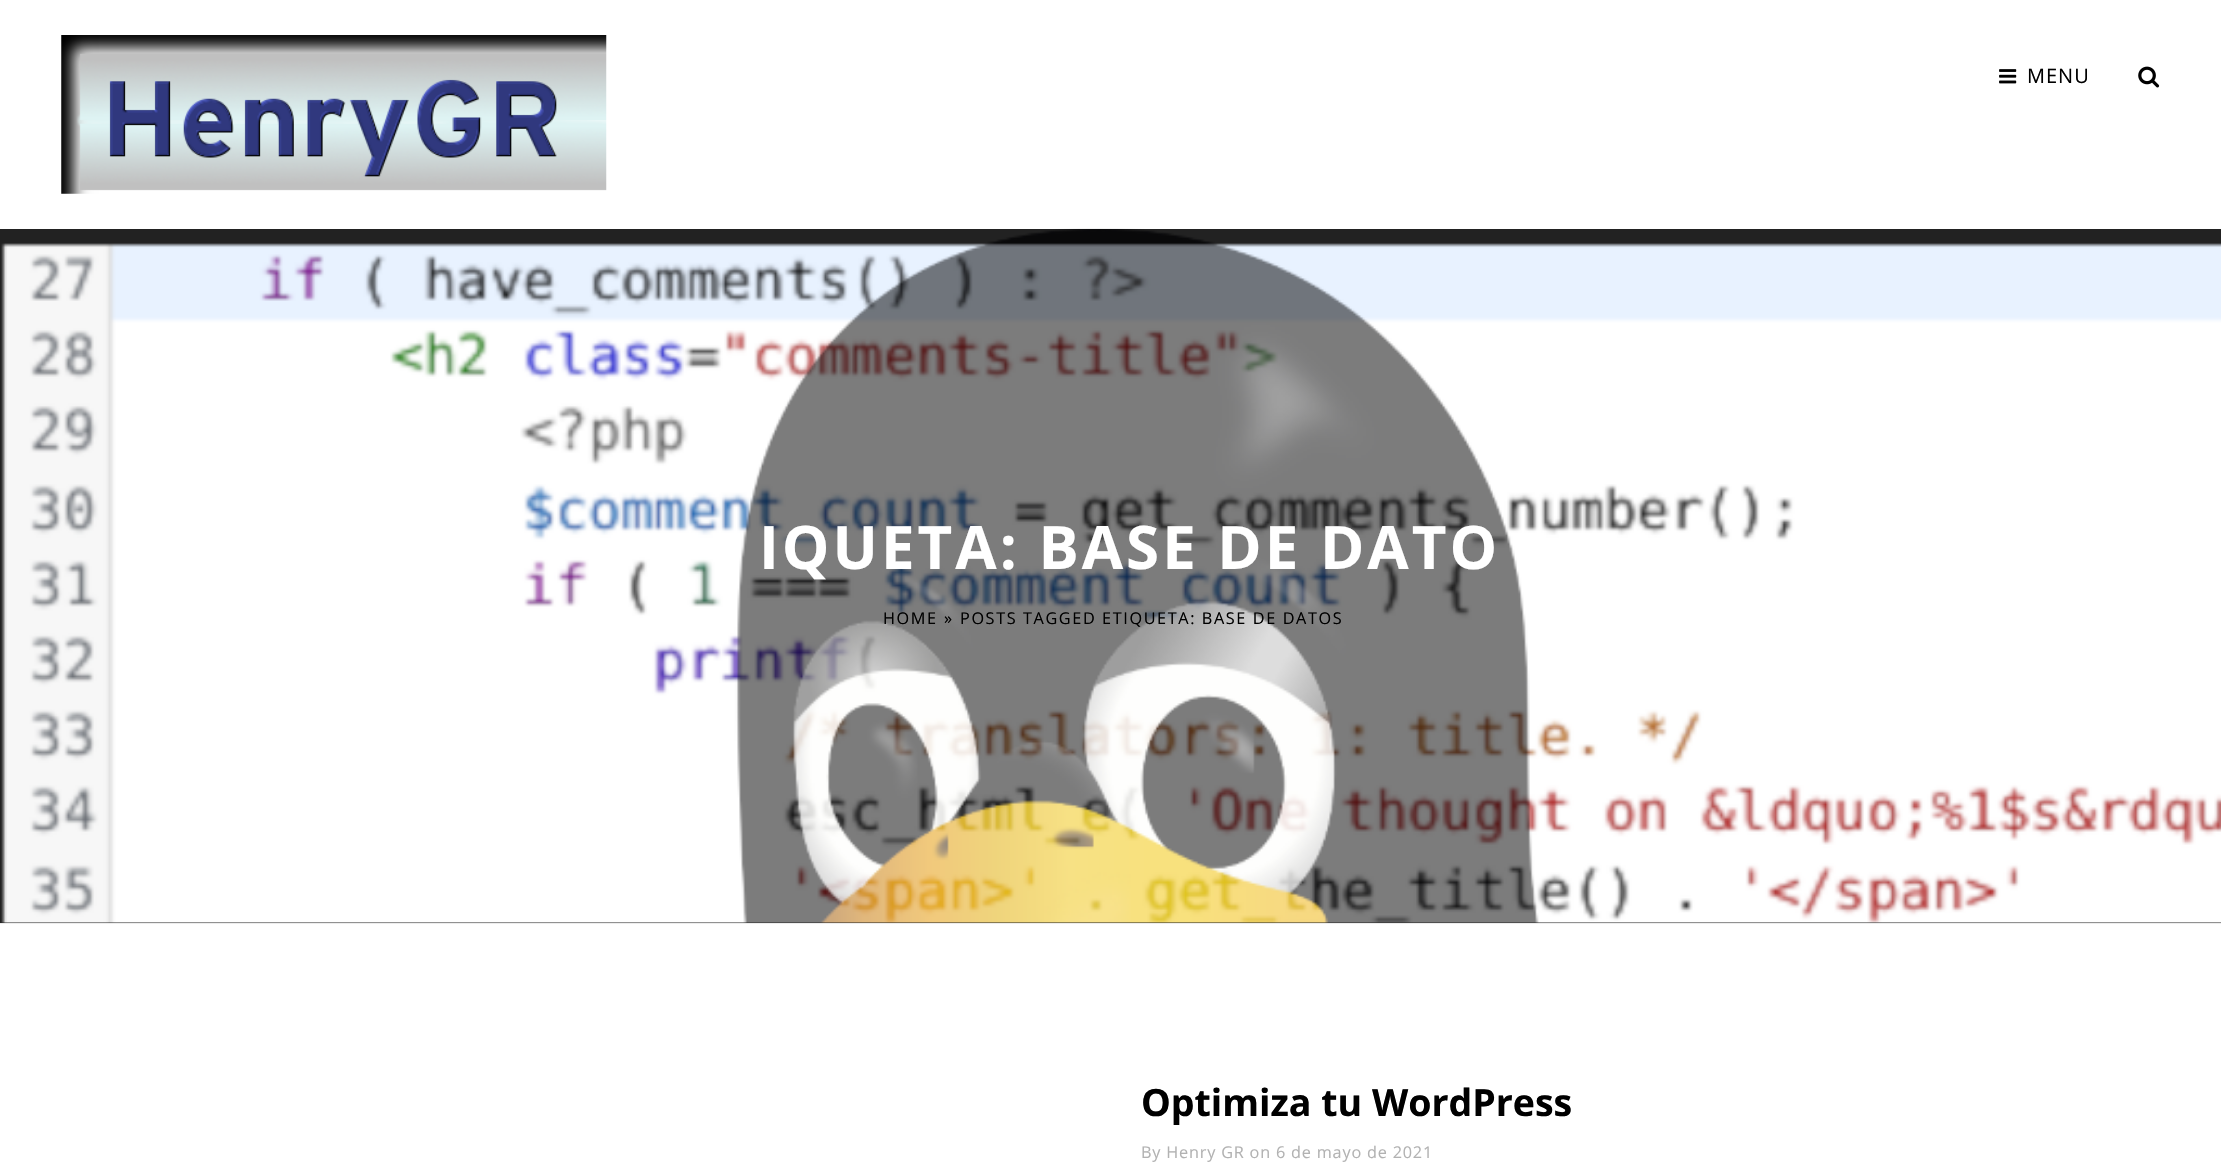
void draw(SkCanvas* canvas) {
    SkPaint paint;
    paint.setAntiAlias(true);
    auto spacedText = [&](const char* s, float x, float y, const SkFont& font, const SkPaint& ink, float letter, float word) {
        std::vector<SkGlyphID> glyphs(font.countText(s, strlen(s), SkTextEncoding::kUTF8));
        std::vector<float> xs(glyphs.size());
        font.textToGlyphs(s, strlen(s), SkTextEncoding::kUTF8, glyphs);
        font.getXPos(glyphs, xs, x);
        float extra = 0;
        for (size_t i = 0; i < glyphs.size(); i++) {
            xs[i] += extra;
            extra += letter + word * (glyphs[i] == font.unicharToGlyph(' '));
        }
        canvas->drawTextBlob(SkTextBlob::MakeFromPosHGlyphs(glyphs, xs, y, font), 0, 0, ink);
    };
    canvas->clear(0xFFFFFFFF);
    canvas->drawImageRect(SkImages::DeferredFromEncodedData(SkData::MakeFromFileName("img1.png")), SkRect::MakeXYWH(61, 35, 546, 159), SkSamplingOptions());
    canvas->drawImageRect(SkImages::DeferredFromEncodedData(SkData::MakeFromFileName("img2.png")), SkRect::MakeXYWH(1999, 69, 18, 15), SkSamplingOptions());
    SkFont font1(fontMgr->matchFamilyStyle("Open Sans", SkFontStyle::Normal()), 20);
    font1.setSubpixel(true);
    paint.setColor(0xFF000000);
    spacedText("MENU", 2027, 83, font1, paint, 1, 0);
    canvas->drawImageRect(SkImages::DeferredFromEncodedData(SkData::MakeFromFileName("img3.png")), SkRect::MakeXYWH(2138, 66, 22, 22), SkSamplingOptions());
    paint.setColor(0xFF222222);
    canvas->drawRect(SkRect::MakeXYWH(0, 229, 2221, 694), paint);
    canvas->drawImageRect(SkImages::DeferredFromEncodedData(SkData::MakeFromFileName("img4.png")), SkRect::MakeXYWH(1, 228, 2220, 695), SkSamplingOptions());
    SkFont font2(fontMgr->matchFamilyStyle("Open Sans", SkFontStyle::Bold()), 60);
    font2.setSubpixel(true);
    paint.setColor(0xFFFFFFFF);
    spacedText("IQUETA: BASE DE DATO", 759, 569, font2, paint, 3, 0);
    SkFont font3(fontMgr->matchFamilyStyle("Open Sans", SkFontStyle::Normal()), 16.25f);
    font3.setSubpixel(true);
    paint.setColor(0xFF000000);
    spacedText("HOME", 883, 624, font3, paint, 1.6f, 0);
    spacedText("»", 944, 624, font3, paint, 1.6f, 0);
    spacedText("POSTS TAGGED ETIQUETA: BASE DE DATOS", 960, 624, font3, paint, 1.6f, 0);
    paint.setColor(0xFFECECEC);
    canvas->drawRect(SkRect::MakeXYWH(0, 923, 2221, 1), paint);
    SkFont font4(fontMgr->matchFamilyStyle("Open Sans", SkFontStyle::Bold()), 37.5f);
    font4.setSubpixel(true);
    paint.setColor(0xFF000000);
    canvas->drawString("Optimiza tu WordPress", 1141, 1116, font4, paint);
    paint.setColor(0xFFB2B2B2);
    spacedText("By Henry GR on 6 de mayo de 2021", 1141, 1158, font3, paint, 0.8f, 0);
}
